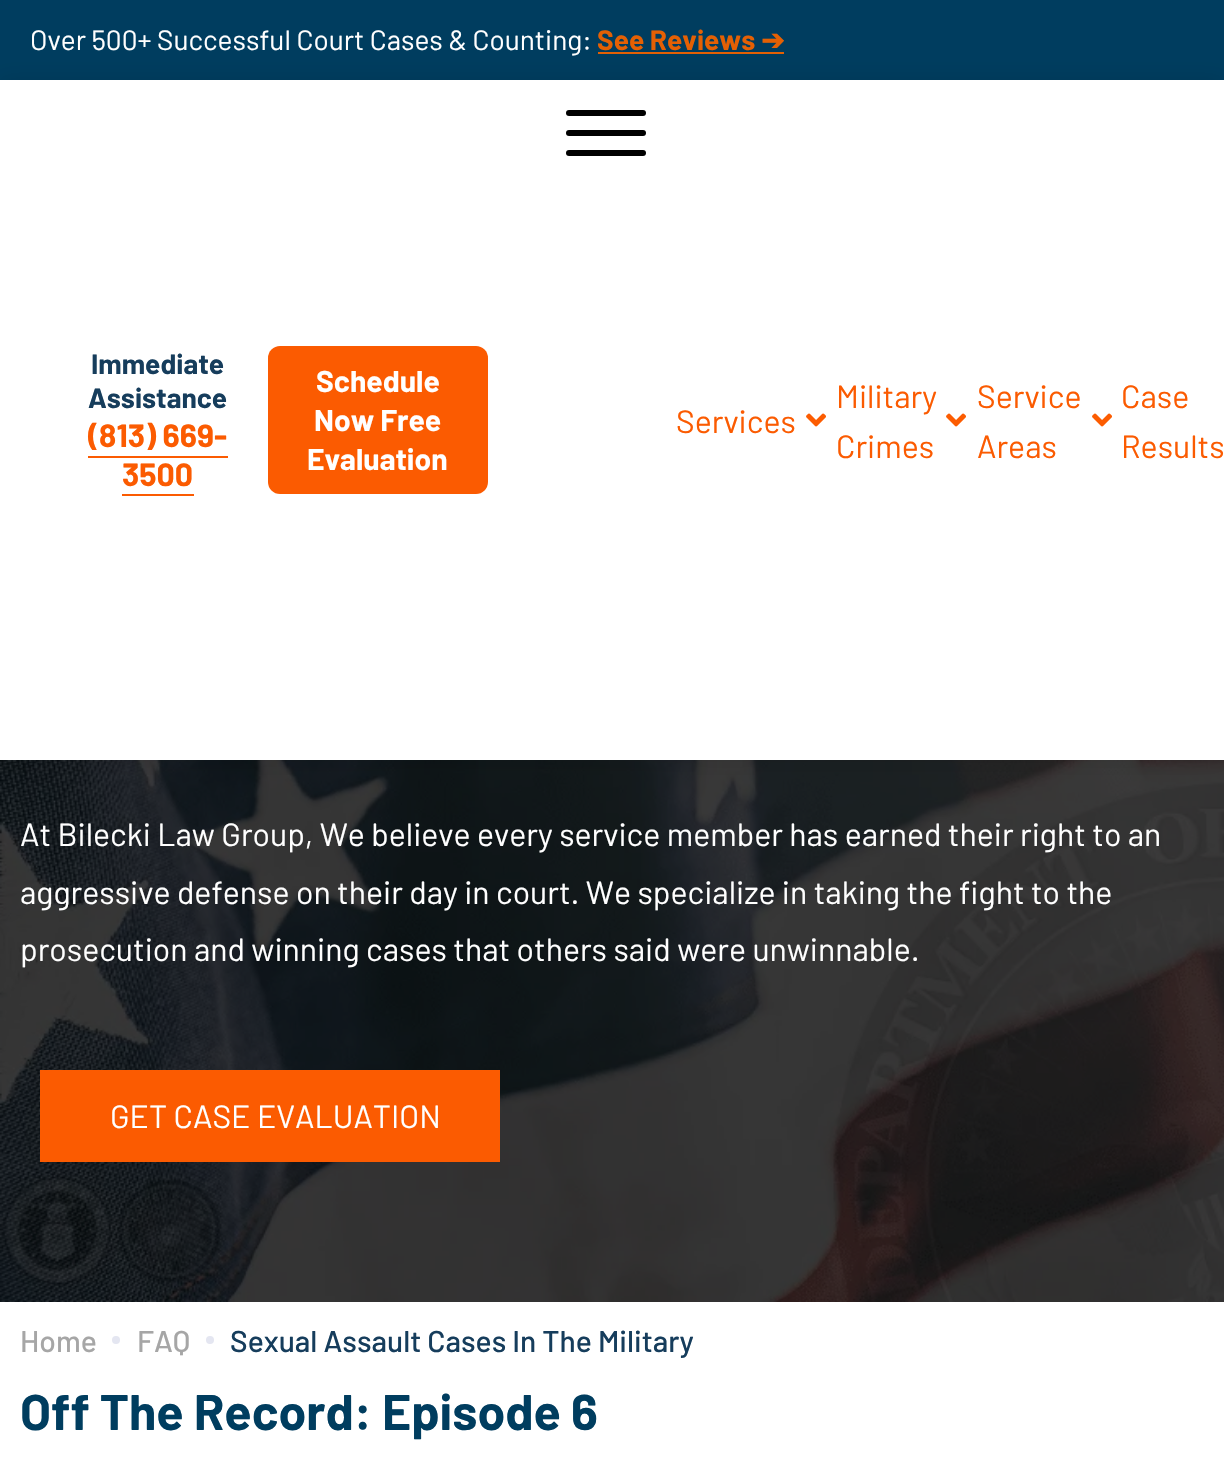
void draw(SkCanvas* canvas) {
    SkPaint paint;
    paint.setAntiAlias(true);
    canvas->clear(0xFFFFFFFF);
    paint.setColor(0xFF003D5F);
    canvas->drawRect(SkRect::MakeXYWH(0, 0, 1224, 80), paint);
    SkFont font1(fontMgr->matchFamilyStyle("Barlow", SkFontStyle::Normal()), 28);
    font1.setSubpixel(true);
    paint.setColor(0xFFFFFFFF);
    canvas->drawString("Over 500+ Successful Court Cases & Counting:", 30, 50, font1, paint);
    SkFont font2(fontMgr->matchFamilyStyle("Barlow", SkFontStyle::Bold()), 28);
    font2.setSubpixel(true);
    paint.setColor(0xFFE46004);
    canvas->drawString("See Reviews", 597, 50, font2, paint);
    SkFont font3(fontMgr->matchFamilyStyle("DejaVu Sans", SkFontStyle::Bold()), 28);
    font3.setSubpixel(true);
    canvas->drawString("➔", 761, 50, font3, paint);
    canvas->drawRect(SkRect::MakeXYWH(598, 52, 186, 2), paint);
    canvas->drawImageRect(SkImages::DeferredFromEncodedData(SkData::MakeFromFileName("img2.png")), SkRect::MakeXYWH(0, 760, 1224, 542), SkSamplingOptions());
    paint.setColor(0x1A000000);
    paint.setMaskFilter(SkMaskFilter::MakeBlur(kNormal_SkBlurStyle, 10));
    canvas->drawRect(SkRect::MakeXYWH(0, 80, 1224, 680), paint);
    paint.setMaskFilter(nullptr);
    paint.setColor(0xFFFFFFFF);
    canvas->drawRect(SkRect::MakeXYWH(0, 80, 1224, 680), paint);
    paint.setColor(0xFF000000);
    canvas->drawRoundRect(SkRect::MakeXYWH(566, 130, 80, 6), 3, 3, paint);
    canvas->drawRoundRect(SkRect::MakeXYWH(566, 110, 80, 6), 3, 3, paint);
    canvas->drawRoundRect(SkRect::MakeXYWH(566, 150, 80, 6), 3, 3, paint);
    paint.setColor(0xFF163D5C);
    canvas->drawString("Immediate", 91, 374, font2, paint);
    canvas->drawString("Assistance", 88, 408, font2, paint);
    SkFont font4(fontMgr->matchFamilyStyle("Barlow", SkFontStyle::Bold()), 32);
    font4.setSubpixel(true);
    paint.setColor(0xFFFB5B01);
    canvas->drawString("(813) 669-", 88, 447, font4, paint);
    canvas->drawString("3500", 122, 486, font4, paint);
    canvas->drawRect(SkRect::MakeXYWH(88, 456, 140, 2), paint);
    canvas->drawRect(SkRect::MakeXYWH(122, 494, 72, 2), paint);
    canvas->drawRoundRect(SkRect::MakeXYWH(268, 346, 220, 148), 12, 12, paint);
    SkFont font5(fontMgr->matchFamilyStyle("Barlow", SkFontStyle::Bold()), 30);
    font5.setSubpixel(true);
    paint.setColor(0xFFFFFFFF);
    canvas->drawString("Schedule", 316, 392, font5, paint);
    canvas->drawString("Now Free", 314, 431, font5, paint);
    canvas->drawString("Evaluation", 307, 470, font5, paint);
    SkFont font6(fontMgr->matchFamilyStyle("Barlow", SkFontStyle::Normal()), 32);
    font6.setSubpixel(true);
    paint.setColor(0xFFFB5B01);
    canvas->drawString("Services", 676, 433, font6, paint);
    canvas->drawImageRect(SkImages::DeferredFromEncodedData(SkData::MakeFromFileName("img1.png")), SkRect::MakeXYWH(806, 413, 20, 14), SkSamplingOptions());
    canvas->drawString("Military", 836, 408, font6, paint);
    canvas->drawString("Crimes", 836, 458, font6, paint);
    canvas->drawImageRect(SkImages::DeferredFromEncodedData(SkData::MakeFromFileName("img1.png")), SkRect::MakeXYWH(946, 413, 20, 14), SkSamplingOptions());
    canvas->drawString("Service", 977, 408, font6, paint);
    canvas->drawString("Areas", 977, 458, font6, paint);
    canvas->drawImageRect(SkImages::DeferredFromEncodedData(SkData::MakeFromFileName("img1.png")), SkRect::MakeXYWH(1092, 413, 20, 14), SkSamplingOptions());
    canvas->drawString("Case", 1121, 408, font6, paint);
    canvas->drawString("Results", 1121, 458, font6, paint);
    paint.setColor(0xFFFFFFFF);
    canvas->drawString("At Bilecki Law Group, We believe every service member has earned their right to an", 20, 846, font6, paint);
    canvas->drawString("aggressive defense on their day in court. We specialize in taking the fight to the", 20, 904, font6, paint);
    canvas->drawString("prosecution and winning cases that others said were unwinnable.", 20, 961, font6, paint);
    paint.setColor(0xFFFB5B01);
    canvas->drawRect(SkRect::MakeXYWH(40, 1070, 460, 92), paint);
    paint.setColor(0xFFFFFFFF);
    canvas->drawString("GET CASE EVALUATION", 110, 1128, font6, paint);
    SkFont font7(fontMgr->matchFamilyStyle("Barlow", SkFontStyle(500, SkFontStyle::kNormal_Width, SkFontStyle::kUpright_Slant)), 30);
    font7.setSubpixel(true);
    paint.setColor(0xFFA6A6A6);
    canvas->drawString("Home", 20, 1352, font7, paint);
    paint.setColor(0xFFE4E6F1);
    canvas->drawCircle(116, 1340, 4, paint);
    paint.setColor(0xFFA6A6A6);
    canvas->drawString("FAQ", 137, 1352, font7, paint);
    paint.setColor(0xFFE4E6F1);
    canvas->drawCircle(210, 1340, 4, paint);
    paint.setColor(0xFF163D5C);
    canvas->drawString("Sexual Assault Cases In The Military", 230, 1352, font7, paint);
    SkFont font8(fontMgr->matchFamilyStyle("Barlow", SkFontStyle::Bold()), 50);
    font8.setSubpixel(true);
    paint.setColor(0xFF003D5F);
    canvas->drawString("Off The Record: Episode 6", 20, 1430, font8, paint);
}
